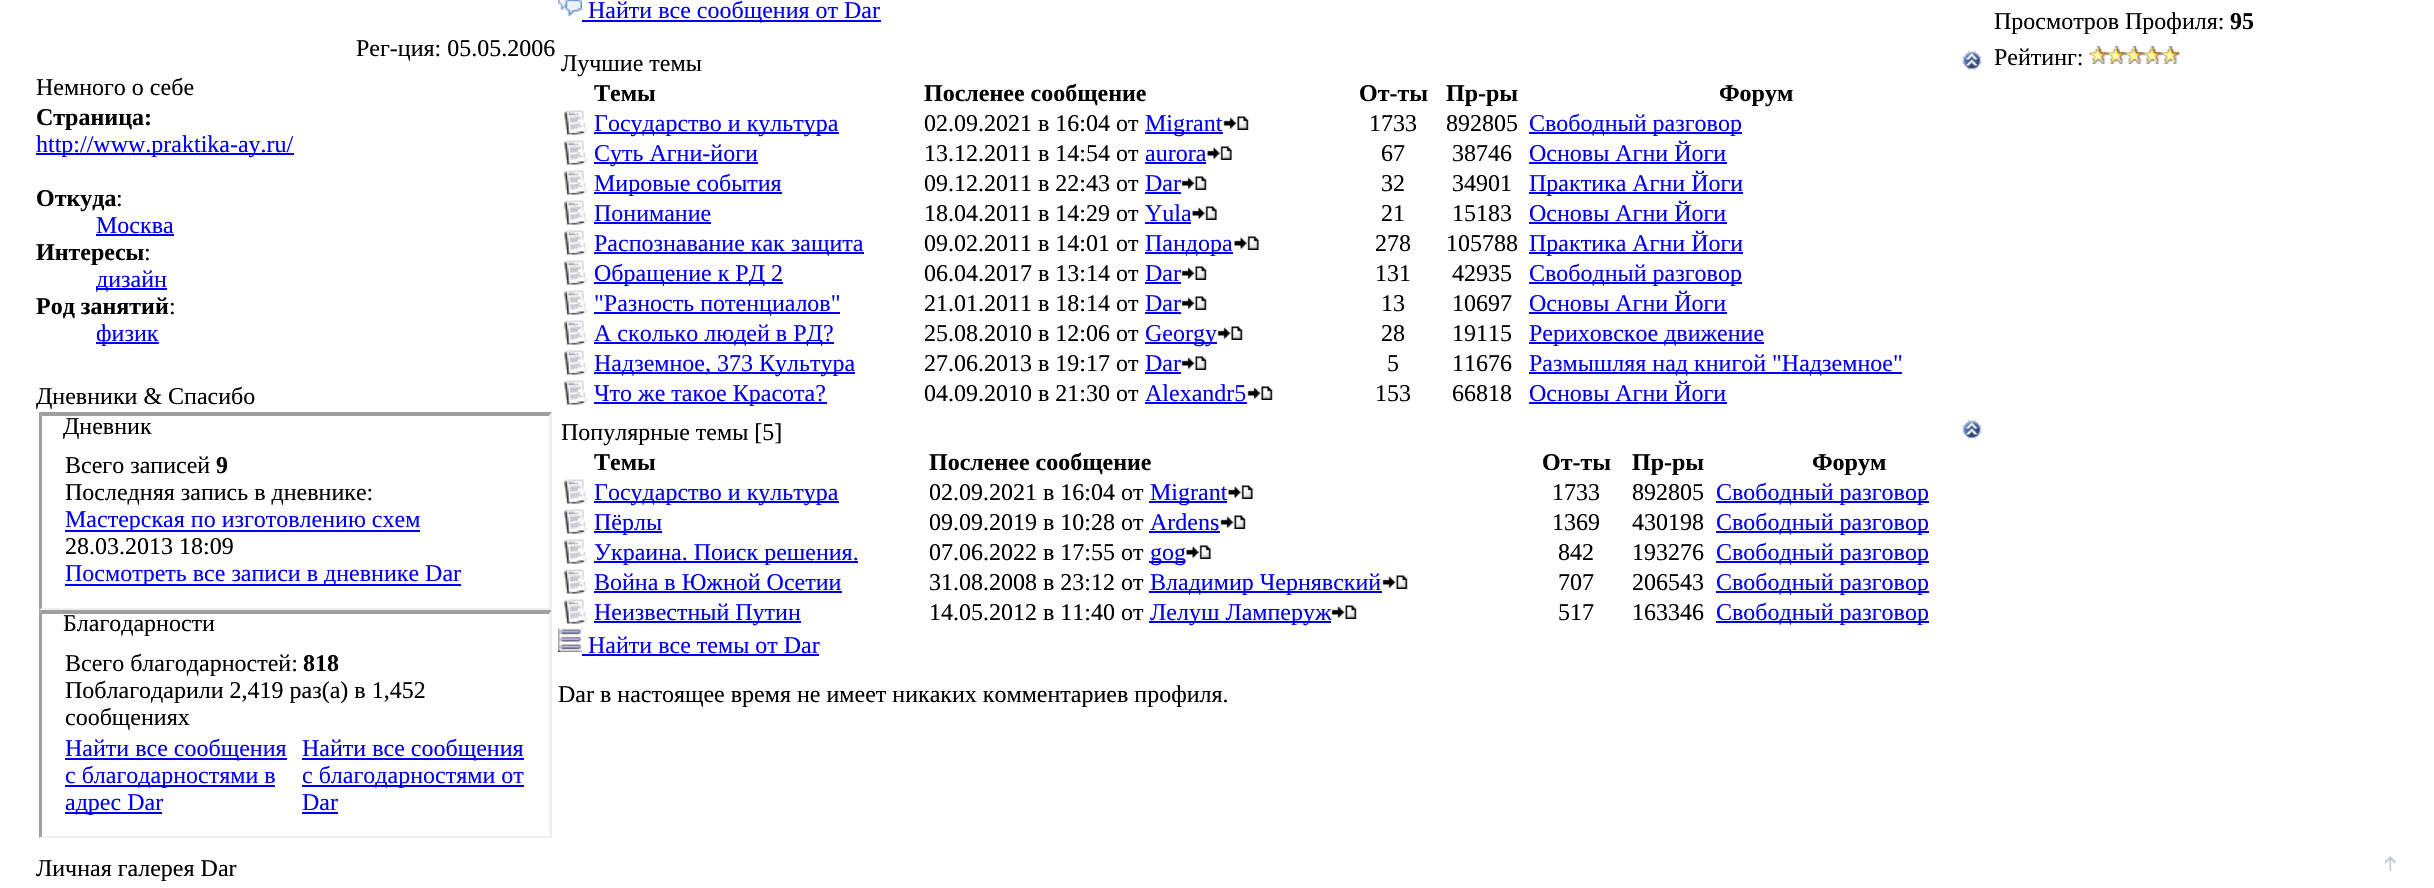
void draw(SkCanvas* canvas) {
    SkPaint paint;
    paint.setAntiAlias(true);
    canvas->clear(0xFFFFFFFF);
    SkFont font1(fontMgr->matchFamilyStyle("Liberation Serif", SkFontStyle::Normal()), 24);
    font1.setSubpixel(true);
    paint.setColor(0xFF000000);
    canvas->drawString("Рег-ция: 05.05.2006", 356, 56, font1, paint);
    canvas->drawString("Немного о себе", 36, 95, font1, paint);
    SkFont font2(fontMgr->matchFamilyStyle("Liberation Serif", SkFontStyle::Bold()), 24);
    font2.setSubpixel(true);
    canvas->drawString("Страница:", 36, 125, font2, paint);
    paint.setColor(0xFF0000EE);
    canvas->drawRect(SkRect::MakeXYWH(36, 153, 258, 2), paint);
    canvas->drawString("http://www.praktika-ay.ru/", 36, 152, font1, paint);
    paint.setColor(0xFF000000);
    canvas->drawString("Откуда", 36, 206, font2, paint);
    canvas->drawString(":", 116, 206, font1, paint);
    paint.setColor(0xFF0000EE);
    canvas->drawString("Москва", 96, 233, font1, paint);
    canvas->drawRect(SkRect::MakeXYWH(96, 234, 78, 2), paint);
    paint.setColor(0xFF000000);
    canvas->drawString("Интересы", 36, 260, font2, paint);
    canvas->drawString(":", 144, 260, font1, paint);
    paint.setColor(0xFF0000EE);
    canvas->drawRect(SkRect::MakeXYWH(96, 288, 71, 2), paint);
    canvas->drawString("дизайн", 96, 287, font1, paint);
    paint.setColor(0xFF000000);
    canvas->drawString("Род занятий", 36, 314, font2, paint);
    canvas->drawString(":", 169, 314, font1, paint);
    paint.setColor(0xFF0000EE);
    canvas->drawRect(SkRect::MakeXYWH(96, 342, 63, 2), paint);
    canvas->drawString("физик", 96, 341, font1, paint);
    paint.setColor(0xFF000000);
    canvas->drawString("Дневники & Спасибо", 36, 404, font1, paint);
    paint.setColor(0xFF9F9F9F);
    canvas->drawPath(SkPathBuilder().moveTo(39, 412).lineTo(552, 412).lineTo(549, 416).lineTo(42, 416).close().detach(), paint);
    paint.setColor(0xFFEFEFEF);
    canvas->drawPath(SkPathBuilder().moveTo(552, 412).lineTo(552, 610).lineTo(549, 608).lineTo(549, 416).close().detach(), paint);
    canvas->drawPath(SkPathBuilder().moveTo(552, 610).lineTo(39, 610).lineTo(42, 608).lineTo(549, 608).close().detach(), paint);
    paint.setColor(0xFF9F9F9F);
    canvas->drawPath(SkPathBuilder().moveTo(39, 610).lineTo(39, 412).lineTo(42, 416).lineTo(42, 608).close().detach(), paint);
    paint.setColor(0xFF000000);
    canvas->drawString("Дневник", 63, 434, font1, paint);
    canvas->drawString("Всего записей", 65, 473, font1, paint);
    canvas->drawString("9", 216, 473, font2, paint);
    canvas->drawString("Последняя запись в дневнике:", 65, 500, font1, paint);
    paint.setColor(0xFF0000EE);
    canvas->drawRect(SkRect::MakeXYWH(65, 530, 355, 2), paint);
    canvas->drawString("Мастерская по изготовлению схем", 65, 527, font1, paint);
    paint.setColor(0xFF000000);
    canvas->drawString("28.03.2013 18:09", 65, 554, font1, paint);
    paint.setColor(0xFF0000EE);
    canvas->drawRect(SkRect::MakeXYWH(65, 584, 396, 2), paint);
    canvas->drawString("Посмотреть все записи в дневнике Dar", 65, 581, font1, paint);
    paint.setColor(0xFF9F9F9F);
    canvas->drawPath(SkPathBuilder().moveTo(39, 610).lineTo(552, 610).lineTo(549, 614).lineTo(42, 614).close().detach(), paint);
    paint.setColor(0xFFEFEFEF);
    canvas->drawPath(SkPathBuilder().moveTo(552, 610).lineTo(552, 838).lineTo(549, 836).lineTo(549, 614).close().detach(), paint);
    canvas->drawPath(SkPathBuilder().moveTo(552, 838).lineTo(39, 838).lineTo(42, 836).lineTo(549, 836).close().detach(), paint);
    paint.setColor(0xFF9F9F9F);
    canvas->drawPath(SkPathBuilder().moveTo(39, 838).lineTo(39, 610).lineTo(42, 614).lineTo(42, 836).close().detach(), paint);
    paint.setColor(0xFF000000);
    canvas->drawString("Благодарности", 63, 631, font1, paint);
    canvas->drawString("Всего благодарностей:", 65, 671, font1, paint);
    canvas->drawString("818", 303, 671, font2, paint);
    canvas->drawString("Поблагодарили 2,419 раз(а) в 1,452", 65, 698, font1, paint);
    canvas->drawString("сообщениях", 65, 725, font1, paint);
    paint.setColor(0xFF0000EE);
    canvas->drawRect(SkRect::MakeXYWH(65, 758, 222, 2), paint);
    canvas->drawString("Найти все сообщения", 65, 756, font1, paint);
    canvas->drawRect(SkRect::MakeXYWH(65, 785, 210, 2), paint);
    canvas->drawString("с благодарностями в", 65, 783, font1, paint);
    canvas->drawRect(SkRect::MakeXYWH(65, 812, 97, 2), paint);
    canvas->drawString("адрес Dar", 65, 810, font1, paint);
    canvas->drawRect(SkRect::MakeXYWH(302, 758, 222, 2), paint);
    canvas->drawString("Найти все сообщения", 302, 756, font1, paint);
    canvas->drawRect(SkRect::MakeXYWH(302, 785, 222, 2), paint);
    canvas->drawString("с благодарностями от", 302, 783, font1, paint);
    canvas->drawString("Dar", 302, 810, font1, paint);
    canvas->drawRect(SkRect::MakeXYWH(302, 812, 36, 2), paint);
    canvas->drawImageRect(SkImages::DeferredFromEncodedData(SkData::MakeFromFileName("img1.png")), SkRect::MakeXYWH(558, 0, 24, 17), SkSamplingOptions());
    canvas->drawRect(SkRect::MakeXYWH(582, 20, 299, 2), paint);
    canvas->drawString("Найти все сообщения от Dar", 588, 18, font1, paint);
    paint.setColor(0xFF000000);
    canvas->drawString("Лучшие темы", 561, 71, font1, paint);
    canvas->drawImageRect(SkImages::DeferredFromEncodedData(SkData::MakeFromFileName("img2.png")), SkRect::MakeXYWH(1961, 50, 21, 21), SkSamplingOptions());
    canvas->drawString("Темы", 594, 101, font2, paint);
    canvas->drawString("Посленее сообщение", 924, 101, font2, paint);
    canvas->drawString("От-ты", 1359, 101, font2, paint);
    canvas->drawString("Пр-ры", 1446, 101, font2, paint);
    canvas->drawString("Форум", 1719, 101, font2, paint);
    canvas->drawImageRect(SkImages::DeferredFromEncodedData(SkData::MakeFromFileName("img3.png")), SkRect::MakeXYWH(564, 110, 23, 25), SkSamplingOptions());
    paint.setColor(0xFF0000EE);
    canvas->drawRect(SkRect::MakeXYWH(594, 132, 245, 2), paint);
    canvas->drawString("Государство и культура", 594, 131, font1, paint);
    paint.setColor(0xFF000000);
    canvas->drawString("02.09.2021 в 16:04 от", 924, 131, font1, paint);
    paint.setColor(0xFF0000EE);
    canvas->drawRect(SkRect::MakeXYWH(1145, 132, 78, 2), paint);
    canvas->drawString("Migrant", 1145, 131, font1, paint);
    canvas->drawImageRect(SkImages::DeferredFromEncodedData(SkData::MakeFromFileName("img4.png")), SkRect::MakeXYWH(1223, 116, 26, 14), SkSamplingOptions());
    paint.setColor(0xFF000000);
    canvas->drawString("1733", 1369, 131, font1, paint);
    canvas->drawString("892805", 1446, 131, font1, paint);
    paint.setColor(0xFF0000EE);
    canvas->drawRect(SkRect::MakeXYWH(1529, 132, 213, 2), paint);
    canvas->drawString("Свободный разговор", 1529, 131, font1, paint);
    canvas->drawImageRect(SkImages::DeferredFromEncodedData(SkData::MakeFromFileName("img3.png")), SkRect::MakeXYWH(564, 140, 23, 25), SkSamplingOptions());
    canvas->drawRect(SkRect::MakeXYWH(594, 162, 164, 2), paint);
    canvas->drawString("Суть Агни-йоги", 594, 161, font1, paint);
    paint.setColor(0xFF000000);
    canvas->drawString("13.12.2011 в 14:54 от", 924, 161, font1, paint);
    paint.setColor(0xFF0000EE);
    canvas->drawString("aurora", 1145, 161, font1, paint);
    canvas->drawRect(SkRect::MakeXYWH(1145, 162, 61, 2), paint);
    canvas->drawImageRect(SkImages::DeferredFromEncodedData(SkData::MakeFromFileName("img5.png")), SkRect::MakeXYWH(1207, 146, 25, 14), SkSamplingOptions());
    paint.setColor(0xFF000000);
    canvas->drawString("67", 1381, 161, font1, paint);
    canvas->drawString("38746", 1452, 161, font1, paint);
    paint.setColor(0xFF0000EE);
    canvas->drawString("Основы Агни Йоги", 1529, 161, font1, paint);
    canvas->drawRect(SkRect::MakeXYWH(1529, 162, 198, 2), paint);
    canvas->drawImageRect(SkImages::DeferredFromEncodedData(SkData::MakeFromFileName("img3.png")), SkRect::MakeXYWH(564, 170, 23, 25), SkSamplingOptions());
    canvas->drawRect(SkRect::MakeXYWH(594, 192, 188, 2), paint);
    canvas->drawString("Мировые события", 594, 191, font1, paint);
    paint.setColor(0xFF000000);
    canvas->drawString("09.12.2011 в 22:43 от", 924, 191, font1, paint);
    paint.setColor(0xFF0000EE);
    canvas->drawString("Dar", 1145, 191, font1, paint);
    canvas->drawRect(SkRect::MakeXYWH(1145, 192, 36, 2), paint);
    canvas->drawImageRect(SkImages::DeferredFromEncodedData(SkData::MakeFromFileName("img6.png")), SkRect::MakeXYWH(1181, 176, 26, 14), SkSamplingOptions());
    paint.setColor(0xFF000000);
    canvas->drawString("32", 1381, 191, font1, paint);
    canvas->drawString("34901", 1452, 191, font1, paint);
    paint.setColor(0xFF0000EE);
    canvas->drawRect(SkRect::MakeXYWH(1529, 192, 214, 2), paint);
    canvas->drawString("Практика Агни Йоги", 1529, 191, font1, paint);
    canvas->drawImageRect(SkImages::DeferredFromEncodedData(SkData::MakeFromFileName("img3.png")), SkRect::MakeXYWH(564, 200, 23, 25), SkSamplingOptions());
    canvas->drawString("Понимание", 594, 221, font1, paint);
    canvas->drawRect(SkRect::MakeXYWH(594, 222, 117, 2), paint);
    paint.setColor(0xFF000000);
    canvas->drawString("18.04.2011 в 14:29 от", 924, 221, font1, paint);
    paint.setColor(0xFF0000EE);
    canvas->drawString("Yula", 1145, 221, font1, paint);
    canvas->drawRect(SkRect::MakeXYWH(1145, 222, 46, 2), paint);
    canvas->drawImageRect(SkImages::DeferredFromEncodedData(SkData::MakeFromFileName("img5.png")), SkRect::MakeXYWH(1192, 206, 25, 14), SkSamplingOptions());
    paint.setColor(0xFF000000);
    canvas->drawString("21", 1381, 221, font1, paint);
    canvas->drawString("15183", 1452, 221, font1, paint);
    paint.setColor(0xFF0000EE);
    canvas->drawString("Основы Агни Йоги", 1529, 221, font1, paint);
    canvas->drawRect(SkRect::MakeXYWH(1529, 222, 198, 2), paint);
    canvas->drawImageRect(SkImages::DeferredFromEncodedData(SkData::MakeFromFileName("img3.png")), SkRect::MakeXYWH(564, 230, 23, 25), SkSamplingOptions());
    canvas->drawRect(SkRect::MakeXYWH(594, 252, 270, 2), paint);
    canvas->drawString("Распознавание как защита", 594, 251, font1, paint);
    paint.setColor(0xFF000000);
    canvas->drawString("09.02.2011 в 14:01 от", 924, 251, font1, paint);
    paint.setColor(0xFF0000EE);
    canvas->drawRect(SkRect::MakeXYWH(1145, 252, 88, 2), paint);
    canvas->drawString("Пандора", 1145, 251, font1, paint);
    canvas->drawImageRect(SkImages::DeferredFromEncodedData(SkData::MakeFromFileName("img5.png")), SkRect::MakeXYWH(1234, 236, 25, 14), SkSamplingOptions());
    paint.setColor(0xFF000000);
    canvas->drawString("278", 1375, 251, font1, paint);
    canvas->drawString("105788", 1446, 251, font1, paint);
    paint.setColor(0xFF0000EE);
    canvas->drawRect(SkRect::MakeXYWH(1529, 252, 214, 2), paint);
    canvas->drawString("Практика Агни Йоги", 1529, 251, font1, paint);
    canvas->drawImageRect(SkImages::DeferredFromEncodedData(SkData::MakeFromFileName("img3.png")), SkRect::MakeXYWH(564, 260, 23, 25), SkSamplingOptions());
    canvas->drawRect(SkRect::MakeXYWH(594, 282, 189, 2), paint);
    canvas->drawString("Обращение к РД 2", 594, 281, font1, paint);
    paint.setColor(0xFF000000);
    canvas->drawString("06.04.2017 в 13:14 от", 924, 281, font1, paint);
    paint.setColor(0xFF0000EE);
    canvas->drawString("Dar", 1145, 281, font1, paint);
    canvas->drawRect(SkRect::MakeXYWH(1145, 282, 36, 2), paint);
    canvas->drawImageRect(SkImages::DeferredFromEncodedData(SkData::MakeFromFileName("img6.png")), SkRect::MakeXYWH(1181, 266, 26, 14), SkSamplingOptions());
    paint.setColor(0xFF000000);
    canvas->drawString("131", 1375, 281, font1, paint);
    canvas->drawString("42935", 1452, 281, font1, paint);
    paint.setColor(0xFF0000EE);
    canvas->drawRect(SkRect::MakeXYWH(1529, 282, 213, 2), paint);
    canvas->drawString("Свободный разговор", 1529, 281, font1, paint);
    canvas->drawImageRect(SkImages::DeferredFromEncodedData(SkData::MakeFromFileName("img3.png")), SkRect::MakeXYWH(564, 290, 23, 25), SkSamplingOptions());
    canvas->drawRect(SkRect::MakeXYWH(594, 312, 246, 2), paint);
    canvas->drawString("\"Разность потенциалов\"", 594, 311, font1, paint);
    paint.setColor(0xFF000000);
    canvas->drawString("21.01.2011 в 18:14 от", 924, 311, font1, paint);
    paint.setColor(0xFF0000EE);
    canvas->drawString("Dar", 1145, 311, font1, paint);
    canvas->drawRect(SkRect::MakeXYWH(1145, 312, 36, 2), paint);
    canvas->drawImageRect(SkImages::DeferredFromEncodedData(SkData::MakeFromFileName("img6.png")), SkRect::MakeXYWH(1181, 296, 26, 14), SkSamplingOptions());
    paint.setColor(0xFF000000);
    canvas->drawString("13", 1381, 311, font1, paint);
    canvas->drawString("10697", 1452, 311, font1, paint);
    paint.setColor(0xFF0000EE);
    canvas->drawString("Основы Агни Йоги", 1529, 311, font1, paint);
    canvas->drawRect(SkRect::MakeXYWH(1529, 312, 198, 2), paint);
    canvas->drawImageRect(SkImages::DeferredFromEncodedData(SkData::MakeFromFileName("img3.png")), SkRect::MakeXYWH(564, 320, 23, 25), SkSamplingOptions());
    canvas->drawRect(SkRect::MakeXYWH(594, 342, 240, 2), paint);
    canvas->drawString("А сколько людей в РД?", 594, 341, font1, paint);
    paint.setColor(0xFF000000);
    canvas->drawString("25.08.2010 в 12:06 от", 924, 341, font1, paint);
    paint.setColor(0xFF0000EE);
    canvas->drawRect(SkRect::MakeXYWH(1145, 342, 72, 2), paint);
    canvas->drawString("Georgy", 1145, 341, font1, paint);
    canvas->drawImageRect(SkImages::DeferredFromEncodedData(SkData::MakeFromFileName("img4.png")), SkRect::MakeXYWH(1217, 326, 26, 14), SkSamplingOptions());
    paint.setColor(0xFF000000);
    canvas->drawString("28", 1381, 341, font1, paint);
    canvas->drawString("19115", 1452, 341, font1, paint);
    paint.setColor(0xFF0000EE);
    canvas->drawRect(SkRect::MakeXYWH(1529, 342, 235, 2), paint);
    canvas->drawString("Рериховское движение", 1529, 341, font1, paint);
    canvas->drawImageRect(SkImages::DeferredFromEncodedData(SkData::MakeFromFileName("img3.png")), SkRect::MakeXYWH(564, 350, 23, 25), SkSamplingOptions());
    canvas->drawRect(SkRect::MakeXYWH(594, 372, 261, 2), paint);
    canvas->drawString("Надземное, 373 Культура", 594, 371, font1, paint);
    paint.setColor(0xFF000000);
    canvas->drawString("27.06.2013 в 19:17 от", 924, 371, font1, paint);
    paint.setColor(0xFF0000EE);
    canvas->drawString("Dar", 1145, 371, font1, paint);
    canvas->drawRect(SkRect::MakeXYWH(1145, 372, 36, 2), paint);
    canvas->drawImageRect(SkImages::DeferredFromEncodedData(SkData::MakeFromFileName("img6.png")), SkRect::MakeXYWH(1181, 356, 26, 14), SkSamplingOptions());
    paint.setColor(0xFF000000);
    canvas->drawString("5", 1387, 371, font1, paint);
    canvas->drawString("11676", 1452, 371, font1, paint);
    paint.setColor(0xFF0000EE);
    canvas->drawRect(SkRect::MakeXYWH(1529, 372, 373, 2), paint);
    canvas->drawString("Размышляя над книгой \"Надземное\"", 1529, 371, font1, paint);
    canvas->drawImageRect(SkImages::DeferredFromEncodedData(SkData::MakeFromFileName("img3.png")), SkRect::MakeXYWH(564, 380, 23, 25), SkSamplingOptions());
    canvas->drawRect(SkRect::MakeXYWH(594, 402, 233, 2), paint);
    canvas->drawString("Что же такое Красота?", 594, 401, font1, paint);
    paint.setColor(0xFF000000);
    canvas->drawString("04.09.2010 в 21:30 от", 924, 401, font1, paint);
    paint.setColor(0xFF0000EE);
    canvas->drawString("Alexandr5", 1145, 401, font1, paint);
    canvas->drawRect(SkRect::MakeXYWH(1145, 402, 102, 2), paint);
    canvas->drawImageRect(SkImages::DeferredFromEncodedData(SkData::MakeFromFileName("img4.png")), SkRect::MakeXYWH(1247, 386, 26, 14), SkSamplingOptions());
    paint.setColor(0xFF000000);
    canvas->drawString("153", 1375, 401, font1, paint);
    canvas->drawString("66818", 1452, 401, font1, paint);
    paint.setColor(0xFF0000EE);
    canvas->drawString("Основы Агни Йоги", 1529, 401, font1, paint);
    canvas->drawRect(SkRect::MakeXYWH(1529, 402, 198, 2), paint);
    paint.setColor(0xFF000000);
    canvas->drawString("Популярные темы [5]", 561, 440, font1, paint);
    canvas->drawImageRect(SkImages::DeferredFromEncodedData(SkData::MakeFromFileName("img2.png")), SkRect::MakeXYWH(1961, 419, 21, 21), SkSamplingOptions());
    canvas->drawString("Темы", 594, 470, font2, paint);
    canvas->drawString("Посленее сообщение", 929, 470, font2, paint);
    canvas->drawString("От-ты", 1542, 470, font2, paint);
    canvas->drawString("Пр-ры", 1632, 470, font2, paint);
    canvas->drawString("Форум", 1812, 470, font2, paint);
    canvas->drawImageRect(SkImages::DeferredFromEncodedData(SkData::MakeFromFileName("img3.png")), SkRect::MakeXYWH(564, 479, 23, 25), SkSamplingOptions());
    paint.setColor(0xFF0000EE);
    canvas->drawRect(SkRect::MakeXYWH(594, 501, 245, 2), paint);
    canvas->drawString("Государство и культура", 594, 500, font1, paint);
    paint.setColor(0xFF000000);
    canvas->drawString("02.09.2021 в 16:04 от", 929, 500, font1, paint);
    paint.setColor(0xFF0000EE);
    canvas->drawRect(SkRect::MakeXYWH(1149, 501, 78, 2), paint);
    canvas->drawString("Migrant", 1150, 500, font1, paint);
    canvas->drawImageRect(SkImages::DeferredFromEncodedData(SkData::MakeFromFileName("img5.png")), SkRect::MakeXYWH(1228, 485, 25, 14), SkSamplingOptions());
    paint.setColor(0xFF000000);
    canvas->drawString("1733", 1552, 500, font1, paint);
    canvas->drawString("892805", 1632, 500, font1, paint);
    paint.setColor(0xFF0000EE);
    canvas->drawRect(SkRect::MakeXYWH(1716, 501, 213, 2), paint);
    canvas->drawString("Свободный разговор", 1716, 500, font1, paint);
    canvas->drawImageRect(SkImages::DeferredFromEncodedData(SkData::MakeFromFileName("img3.png")), SkRect::MakeXYWH(564, 509, 23, 25), SkSamplingOptions());
    canvas->drawRect(SkRect::MakeXYWH(594, 531, 68, 2), paint);
    canvas->drawString("Пёрлы", 594, 530, font1, paint);
    paint.setColor(0xFF000000);
    canvas->drawString("09.09.2019 в 10:28 от", 929, 530, font1, paint);
    paint.setColor(0xFF0000EE);
    canvas->drawString("Ardens", 1150, 530, font1, paint);
    canvas->drawRect(SkRect::MakeXYWH(1149, 531, 71, 2), paint);
    canvas->drawImageRect(SkImages::DeferredFromEncodedData(SkData::MakeFromFileName("img4.png")), SkRect::MakeXYWH(1220, 515, 26, 14), SkSamplingOptions());
    paint.setColor(0xFF000000);
    canvas->drawString("1369", 1552, 530, font1, paint);
    canvas->drawString("430198", 1632, 530, font1, paint);
    paint.setColor(0xFF0000EE);
    canvas->drawRect(SkRect::MakeXYWH(1716, 531, 213, 2), paint);
    canvas->drawString("Свободный разговор", 1716, 530, font1, paint);
    canvas->drawImageRect(SkImages::DeferredFromEncodedData(SkData::MakeFromFileName("img3.png")), SkRect::MakeXYWH(564, 539, 23, 25), SkSamplingOptions());
    canvas->drawRect(SkRect::MakeXYWH(594, 561, 264, 2), paint);
    canvas->drawString("Украина. Поиск решения.", 594, 560, font1, paint);
    paint.setColor(0xFF000000);
    canvas->drawString("07.06.2022 в 17:55 от", 929, 560, font1, paint);
    paint.setColor(0xFF0000EE);
    canvas->drawRect(SkRect::MakeXYWH(1149, 561, 36, 2), paint);
    canvas->drawString("gog", 1150, 560, font1, paint);
    canvas->drawImageRect(SkImages::DeferredFromEncodedData(SkData::MakeFromFileName("img5.png")), SkRect::MakeXYWH(1186, 545, 25, 14), SkSamplingOptions());
    paint.setColor(0xFF000000);
    canvas->drawString("842", 1558, 560, font1, paint);
    canvas->drawString("193276", 1632, 560, font1, paint);
    paint.setColor(0xFF0000EE);
    canvas->drawRect(SkRect::MakeXYWH(1716, 561, 213, 2), paint);
    canvas->drawString("Свободный разговор", 1716, 560, font1, paint);
    canvas->drawImageRect(SkImages::DeferredFromEncodedData(SkData::MakeFromFileName("img3.png")), SkRect::MakeXYWH(564, 569, 23, 25), SkSamplingOptions());
    canvas->drawString("Война в Южной Осетии", 594, 590, font1, paint);
    canvas->drawRect(SkRect::MakeXYWH(594, 591, 248, 2), paint);
    paint.setColor(0xFF000000);
    canvas->drawString("31.08.2008 в 23:12 от", 929, 590, font1, paint);
    paint.setColor(0xFF0000EE);
    canvas->drawRect(SkRect::MakeXYWH(1149, 591, 233, 2), paint);
    canvas->drawString("Владимир Чернявский", 1150, 590, font1, paint);
    canvas->drawImageRect(SkImages::DeferredFromEncodedData(SkData::MakeFromFileName("img6.png")), SkRect::MakeXYWH(1382, 575, 26, 14), SkSamplingOptions());
    paint.setColor(0xFF000000);
    canvas->drawString("707", 1558, 590, font1, paint);
    canvas->drawString("206543", 1632, 590, font1, paint);
    paint.setColor(0xFF0000EE);
    canvas->drawRect(SkRect::MakeXYWH(1716, 591, 213, 2), paint);
    canvas->drawString("Свободный разговор", 1716, 590, font1, paint);
    canvas->drawImageRect(SkImages::DeferredFromEncodedData(SkData::MakeFromFileName("img3.png")), SkRect::MakeXYWH(564, 599, 23, 25), SkSamplingOptions());
    canvas->drawRect(SkRect::MakeXYWH(594, 621, 207, 2), paint);
    canvas->drawString("Неизвестный Путин", 594, 620, font1, paint);
    paint.setColor(0xFF000000);
    canvas->drawString("14.05.2012 в 11:40 от", 929, 620, font1, paint);
    paint.setColor(0xFF0000EE);
    canvas->drawRect(SkRect::MakeXYWH(1149, 621, 182, 2), paint);
    canvas->drawString("Лелуш Ламперуж", 1150, 620, font1, paint);
    canvas->drawImageRect(SkImages::DeferredFromEncodedData(SkData::MakeFromFileName("img6.png")), SkRect::MakeXYWH(1331, 605, 26, 14), SkSamplingOptions());
    paint.setColor(0xFF000000);
    canvas->drawString("517", 1558, 620, font1, paint);
    canvas->drawString("163346", 1632, 620, font1, paint);
    paint.setColor(0xFF0000EE);
    canvas->drawRect(SkRect::MakeXYWH(1716, 621, 213, 2), paint);
    canvas->drawString("Свободный разговор", 1716, 620, font1, paint);
    canvas->drawImageRect(SkImages::DeferredFromEncodedData(SkData::MakeFromFileName("img7.png")), SkRect::MakeXYWH(558, 628, 24, 24), SkSamplingOptions());
    canvas->drawString("Найти все темы от Dar", 588, 653, font1, paint);
    canvas->drawRect(SkRect::MakeXYWH(582, 654, 237, 2), paint);
    paint.setColor(0xFF000000);
    canvas->drawString("Dar в настоящее время не имеет никаких комментариев профиля.", 558, 702, font1, paint);
    canvas->drawString("Просмотров Профиля:", 1994, 29, font1, paint);
    canvas->drawString("95", 2230, 29, font2, paint);
    canvas->drawString("Рейтинг:", 1994, 65, font1, paint);
    canvas->drawImageRect(SkImages::DeferredFromEncodedData(SkData::MakeFromFileName("img8.png")), SkRect::MakeXYWH(2089, 46, 91, 18), SkSamplingOptions());
    canvas->drawString("Личная галерея Dar", 36, 876, font1, paint);
    canvas->drawImageRect(SkImages::DeferredFromEncodedData(SkData::MakeFromFileName("img9.png")), SkRect::MakeXYWH(2384, 855, 12, 16), SkSamplingOptions());
}
